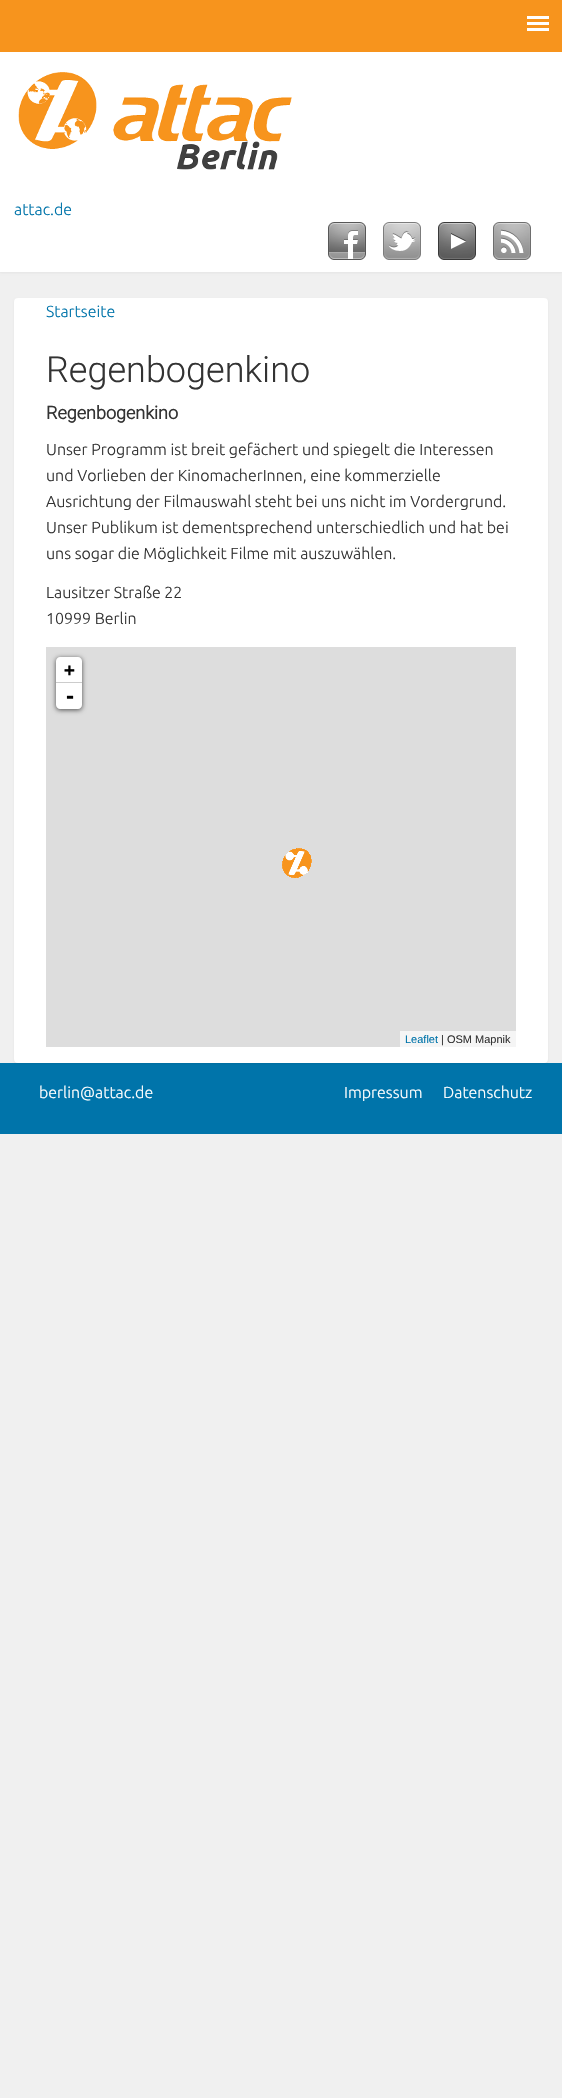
void draw(SkCanvas* canvas) {
    SkPaint paint;
    paint.setAntiAlias(true);
    canvas->clear(0xFFF0F0F0);
    paint.setColor(0x0D000000);
    paint.setMaskFilter(SkMaskFilter::MakeBlur(kNormal_SkBlurStyle, 1));
    canvas->drawRect(SkRect::MakeXYWH(0, 1, 562, 272), paint);
    paint.setMaskFilter(nullptr);
    paint.setColor(0xFFF7941D);
    canvas->drawRect(SkRect::MakeXYWH(0, 0, 562, 52), paint);
    paint.setColor(0xFFFFFFFF);
    canvas->drawRect(SkRect::MakeXYWH(527, 16, 22, 3), paint);
    canvas->drawRect(SkRect::MakeXYWH(527, 22, 22, 3), paint);
    canvas->drawRect(SkRect::MakeXYWH(527, 28, 22, 3), paint);
    canvas->drawRect(SkRect::MakeXYWH(0, 52, 562, 220), paint);
    canvas->drawImageRect(SkImages::DeferredFromEncodedData(SkData::MakeFromFileName("img1.png")), SkRect::MakeXYWH(18, 72, 274, 98), SkSamplingOptions());
    SkFont font1(fontMgr->matchFamilyStyle("Ubuntu", SkFontStyle(300, SkFontStyle::kNormal_Width, SkFontStyle::kUpright_Slant)), 16);
    font1.setSubpixel(true);
    paint.setColor(0xFF0074AA);
    canvas->drawString("attac.de", 14, 215, font1, paint);
    canvas->drawImageRect(SkImages::DeferredFromEncodedData(SkData::MakeFromFileName("img2.png")), SkRect::MakeXYWH(328, 222, 38, 38), SkSamplingOptions());
    canvas->drawImageRect(SkImages::DeferredFromEncodedData(SkData::MakeFromFileName("img3.png")), SkRect::MakeXYWH(383, 222, 38, 38), SkSamplingOptions());
    canvas->drawImageRect(SkImages::DeferredFromEncodedData(SkData::MakeFromFileName("img4.png")), SkRect::MakeXYWH(438, 222, 38, 38), SkSamplingOptions());
    canvas->drawImageRect(SkImages::DeferredFromEncodedData(SkData::MakeFromFileName("img5.png")), SkRect::MakeXYWH(493, 222, 38, 38), SkSamplingOptions());
    canvas->drawRect(SkRect::MakeXYWH(0, 1063, 562, 71), paint);
    paint.setColor(0x0D000000);
    paint.setMaskFilter(SkMaskFilter::MakeBlur(kNormal_SkBlurStyle, 1));
    canvas->drawRoundRect(SkRect::MakeXYWH(14, 299, 534, 765), 4, 4, paint);
    paint.setMaskFilter(nullptr);
    paint.setColor(0xFFFFFFFF);
    canvas->drawRoundRect(SkRect::MakeXYWH(14, 298, 534, 765), 4, 4, paint);
    paint.setColor(0xFF0074AA);
    canvas->drawString("Startseite", 46, 317, font1, paint);
    SkFont font2(fontMgr->matchFamilyStyle("Roboto", SkFontStyle(300, SkFontStyle::kNormal_Width, SkFontStyle::kUpright_Slant)), 36);
    font2.setSubpixel(true);
    paint.setColor(0xFF333333);
    canvas->drawString("Regenbogenkino", 46, 382, font2, paint);
    SkFont font3(fontMgr->matchFamilyStyle("Roboto", SkFontStyle::Bold()), 18);
    font3.setSubpixel(true);
    canvas->drawString("Regenbogenkino", 46, 419, font3, paint);
    canvas->drawString("Unser Programm ist breit gefächert und spiegelt die Interessen", 46, 455, font1, paint);
    canvas->drawString("und Vorlieben der KinomacherInnen, eine kommerzielle", 46, 481, font1, paint);
    canvas->drawString("Ausrichtung der Filmauswahl steht bei uns nicht im Vordergrund.", 46, 507, font1, paint);
    canvas->drawString("Unser Publikum ist dementsprechend unterschiedlich und hat bei", 46, 533, font1, paint);
    canvas->drawString("uns sogar die Möglichkeit Filme mit auszuwählen.", 46, 559, font1, paint);
    canvas->drawString("Lausitzer Straße 22", 46, 598, font1, paint);
    canvas->drawString("10999 Berlin", 46, 624, font1, paint);
    paint.setColor(0xFFDDDDDD);
    canvas->drawRect(SkRect::MakeXYWH(46, 647, 470, 400), paint);
    paint.setColor(0xA6000000);
    paint.setMaskFilter(SkMaskFilter::MakeBlur(kNormal_SkBlurStyle, 2.5f));
    canvas->drawRoundRect(SkRect::MakeXYWH(56, 658, 26, 52), 4, 4, paint);
    paint.setMaskFilter(nullptr);
    paint.setColor(0xFFFFFFFF);
    canvas->drawPath(SkPathBuilder().moveTo(60, 657).lineTo(78, 657).cubicTo(80, 657, 82, 659, 82, 661).lineTo(82, 683).lineTo(56, 683).lineTo(56, 661).cubicTo(56, 659, 58, 657, 60, 657).close().detach(), paint);
    paint.setColor(0xFFCCCCCC);
    canvas->drawRect(SkRect::MakeXYWH(56, 682, 26, 1), paint);
    SkFont font4(fontMgr->matchFamilyStyle("DejaVu Sans Mono", SkFontStyle::Bold()), 18);
    font4.setSubpixel(true);
    paint.setColor(0xFF000000);
    canvas->drawString("+", 64, 676, font4, paint);
    paint.setColor(0xFFFFFFFF);
    canvas->drawPath(SkPathBuilder().moveTo(56, 683).lineTo(82, 683).lineTo(82, 705).cubicTo(82, 707, 80, 709, 78, 709).lineTo(60, 709).cubicTo(58, 709, 56, 707, 56, 705).close().detach(), paint);
    SkFont font5(fontMgr->matchFamilyStyle("DejaVu Sans Mono", SkFontStyle::Bold()), 20);
    font5.setSubpixel(true);
    paint.setColor(0xFF000000);
    canvas->drawString("-", 64, 703, font5, paint);
    paint.setColor(0xFFF5F5F5);
    canvas->drawRect(SkRect::MakeXYWH(400, 1031, 116, 16), paint);
    SkFont font6(fontMgr->matchFamilyStyle("Liberation Sans", SkFontStyle::Normal()), 11);
    font6.setSubpixel(true);
    paint.setColor(0xFF0074AA);
    canvas->drawString("Leaflet", 405, 1043, font6, paint);
    paint.setColor(0xFF333333);
    canvas->drawString("| OSM Mapnik", 441, 1043, font6, paint);
    canvas->drawImageRect(SkImages::DeferredFromEncodedData(SkData::MakeFromFileName("img6.png")), SkRect::MakeXYWH(282, 848, 30, 30), SkSamplingOptions());
    paint.setColor(0xFFFFFFFF);
    canvas->drawString("berlin@attac.de", 39, 1098, font1, paint);
    canvas->drawString("Impressum", 344, 1098, font1, paint);
    canvas->drawString("Datenschutz", 443, 1098, font1, paint);
}
